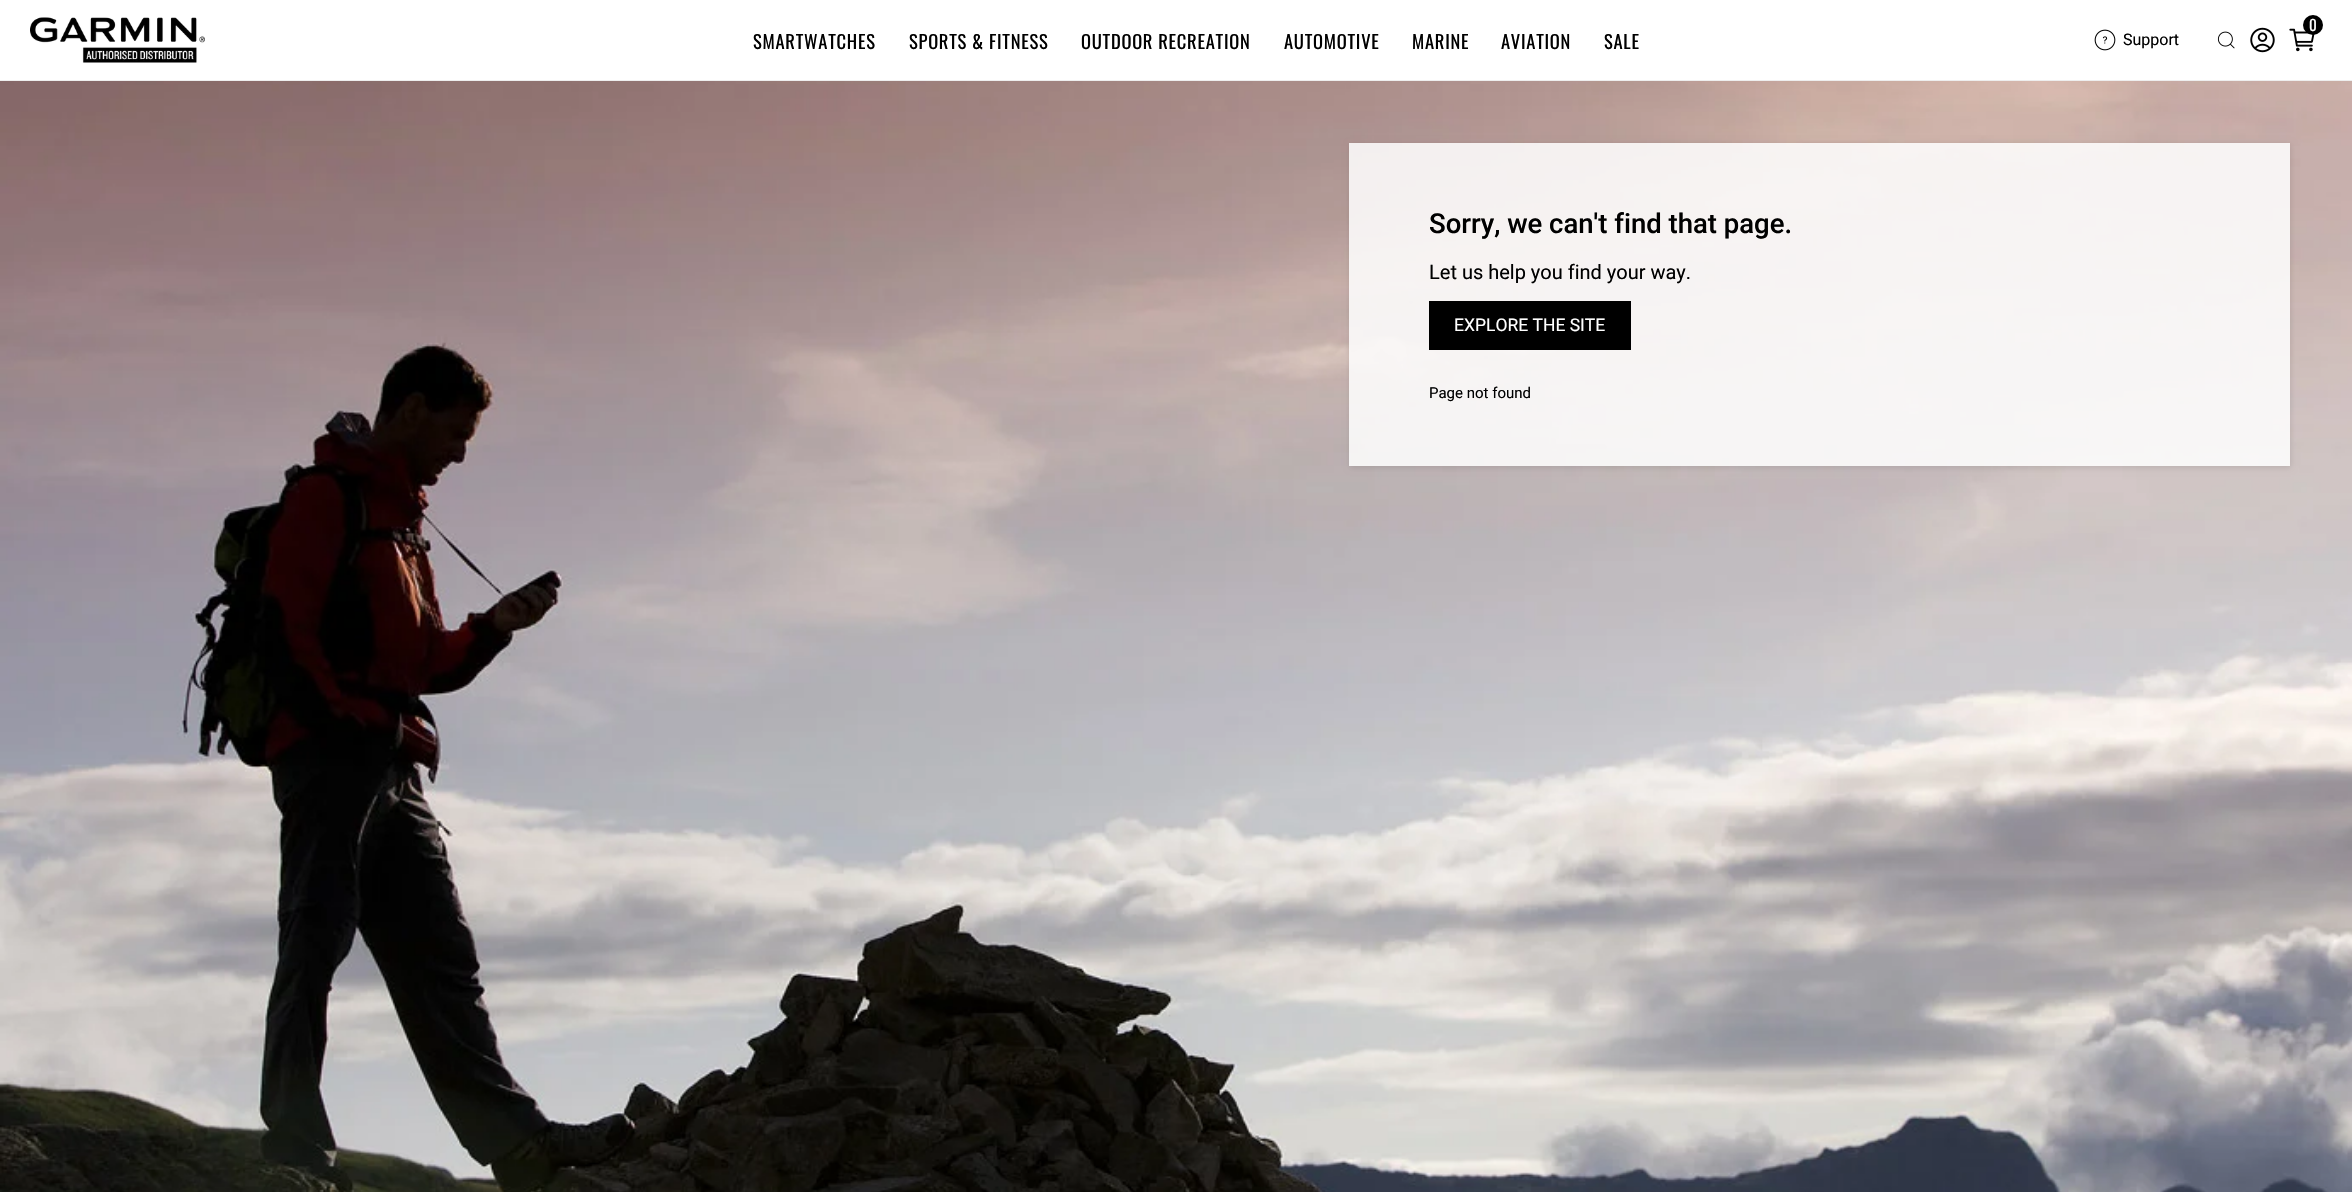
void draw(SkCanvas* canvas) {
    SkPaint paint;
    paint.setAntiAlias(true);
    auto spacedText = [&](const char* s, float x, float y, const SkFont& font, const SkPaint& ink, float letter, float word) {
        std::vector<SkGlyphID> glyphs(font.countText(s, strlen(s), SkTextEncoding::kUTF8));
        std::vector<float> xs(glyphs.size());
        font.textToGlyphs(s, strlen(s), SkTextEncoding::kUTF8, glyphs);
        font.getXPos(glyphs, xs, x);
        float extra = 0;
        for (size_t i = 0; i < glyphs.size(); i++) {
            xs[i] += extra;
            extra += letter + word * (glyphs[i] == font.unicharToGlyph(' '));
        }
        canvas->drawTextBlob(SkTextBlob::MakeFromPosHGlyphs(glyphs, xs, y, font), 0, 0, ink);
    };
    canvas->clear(0xFFFFFFFF);
    paint.setColor(0xFFEEEEEE);
    canvas->drawPath(SkPathBuilder().moveTo(0, 80).lineTo(0, 81).lineTo(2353, 81).lineTo(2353, 1).lineTo(2352, 1).lineTo(2352, 80).close().detach(), paint);
    canvas->drawImageRect(SkImages::DeferredFromEncodedData(SkData::MakeFromFileName("img1.png")), SkRect::MakeXYWH(30, 17, 175, 46), SkSamplingOptions());
    SkFont font1(fontMgr->matchFamilyStyle("Oswald", SkFontStyle::Normal()), 18.5f);
    font1.setSubpixel(true);
    paint.setColor(0xFF000000);
    spacedText("SMARTWATCHES", 753, 49, font1, paint, 0.75f, 0);
    spacedText("SPORTS & FITNESS", 909, 49, font1, paint, 0.75f, 0);
    spacedText("OUTDOOR RECREATION", 1081, 49, font1, paint, 0.75f, 0);
    spacedText("AUTOMOTIVE", 1284, 49, font1, paint, 0.75f, 0);
    spacedText("MARINE", 1412, 49, font1, paint, 0.75f, 0);
    spacedText("AVIATION", 1501, 49, font1, paint, 0.75f, 0);
    spacedText("SALE", 1604, 49, font1, paint, 0.75f, 0);
    canvas->drawImageRect(SkImages::DeferredFromEncodedData(SkData::MakeFromFileName("img2.png")), SkRect::MakeXYWH(2289, 28, 26, 24), SkSamplingOptions());
    canvas->drawCircle(2313, 25, 10, paint);
    SkFont font2(fontMgr->matchFamilyStyle("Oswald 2", SkFontStyle::Normal()), 15);
    font2.setSubpixel(true);
    paint.setColor(0xFFFFFFFF);
    canvas->drawString("0", 2309, 31, font2, paint);
    canvas->drawImageRect(SkImages::DeferredFromEncodedData(SkData::MakeFromFileName("img3.png")), SkRect::MakeXYWH(2094, 29, 22, 22), SkSamplingOptions());
    SkFont font3(fontMgr->matchFamilyStyle("Roboto", SkFontStyle::Normal()), 16);
    font3.setSubpixel(true);
    paint.setColor(0xFF000000);
    canvas->drawString("Support", 2123, 45, font3, paint);
    canvas->drawImageRect(SkImages::DeferredFromEncodedData(SkData::MakeFromFileName("img4.png")), SkRect::MakeXYWH(2217, 31, 18, 18), SkSamplingOptions());
    canvas->drawImageRect(SkImages::DeferredFromEncodedData(SkData::MakeFromFileName("img5.png")), SkRect::MakeXYWH(2250, 27, 25, 26), SkSamplingOptions());
    canvas->drawImageRect(SkImages::DeferredFromEncodedData(SkData::MakeFromFileName("img6.png")), SkRect::MakeXYWH(0, 81, 2352, 1111), SkSamplingOptions());
    canvas->save();
    canvas->clipPath(SkPathBuilder(SkPathFillType::kEvenOdd).moveTo(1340, 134).lineTo(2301, 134).lineTo(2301, 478).lineTo(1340, 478).close().moveTo(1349, 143).lineTo(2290, 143).lineTo(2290, 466).lineTo(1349, 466).close().detach(), true);
    paint.setColor(0x1A000000);
    paint.setMaskFilter(SkMaskFilter::MakeBlur(kNormal_SkBlurStyle, 3));
    canvas->drawRect(SkRect::MakeXYWH(1350, 144, 941, 324), paint);
    paint.setMaskFilter(nullptr);
    canvas->restore();
    paint.setColor(0xD9FFFFFF);
    canvas->drawRect(SkRect::MakeXYWH(1349, 143, 941, 323), paint);
    SkFont font4(fontMgr->matchFamilyStyle("Roboto", SkFontStyle(500, SkFontStyle::kNormal_Width, SkFontStyle::kUpright_Slant)), 27.5f);
    font4.setSubpixel(true);
    paint.setColor(0xFF000000);
    canvas->drawString("Sorry, we can't find that page.", 1429, 233, font4, paint);
    SkFont font5(fontMgr->matchFamilyStyle("Roboto", SkFontStyle::Normal()), 20);
    font5.setSubpixel(true);
    canvas->drawString("Let us help you find your way.", 1429, 279, font5, paint);
    canvas->drawRect(SkRect::MakeXYWH(1429, 301, 202, 49), paint);
    SkFont font6(fontMgr->matchFamilyStyle("Roboto", SkFontStyle::Normal()), 17.5f);
    font6.setSubpixel(true);
    paint.setColor(0xFFFFFFFF);
    canvas->drawString("EXPLORE THE SITE", 1454, 331, font6, paint);
    SkFont font7(fontMgr->matchFamilyStyle("Roboto", SkFontStyle::Normal()), 15);
    font7.setSubpixel(true);
    paint.setColor(0xFF000000);
    canvas->drawString("Page not found", 1429, 398, font7, paint);
}
